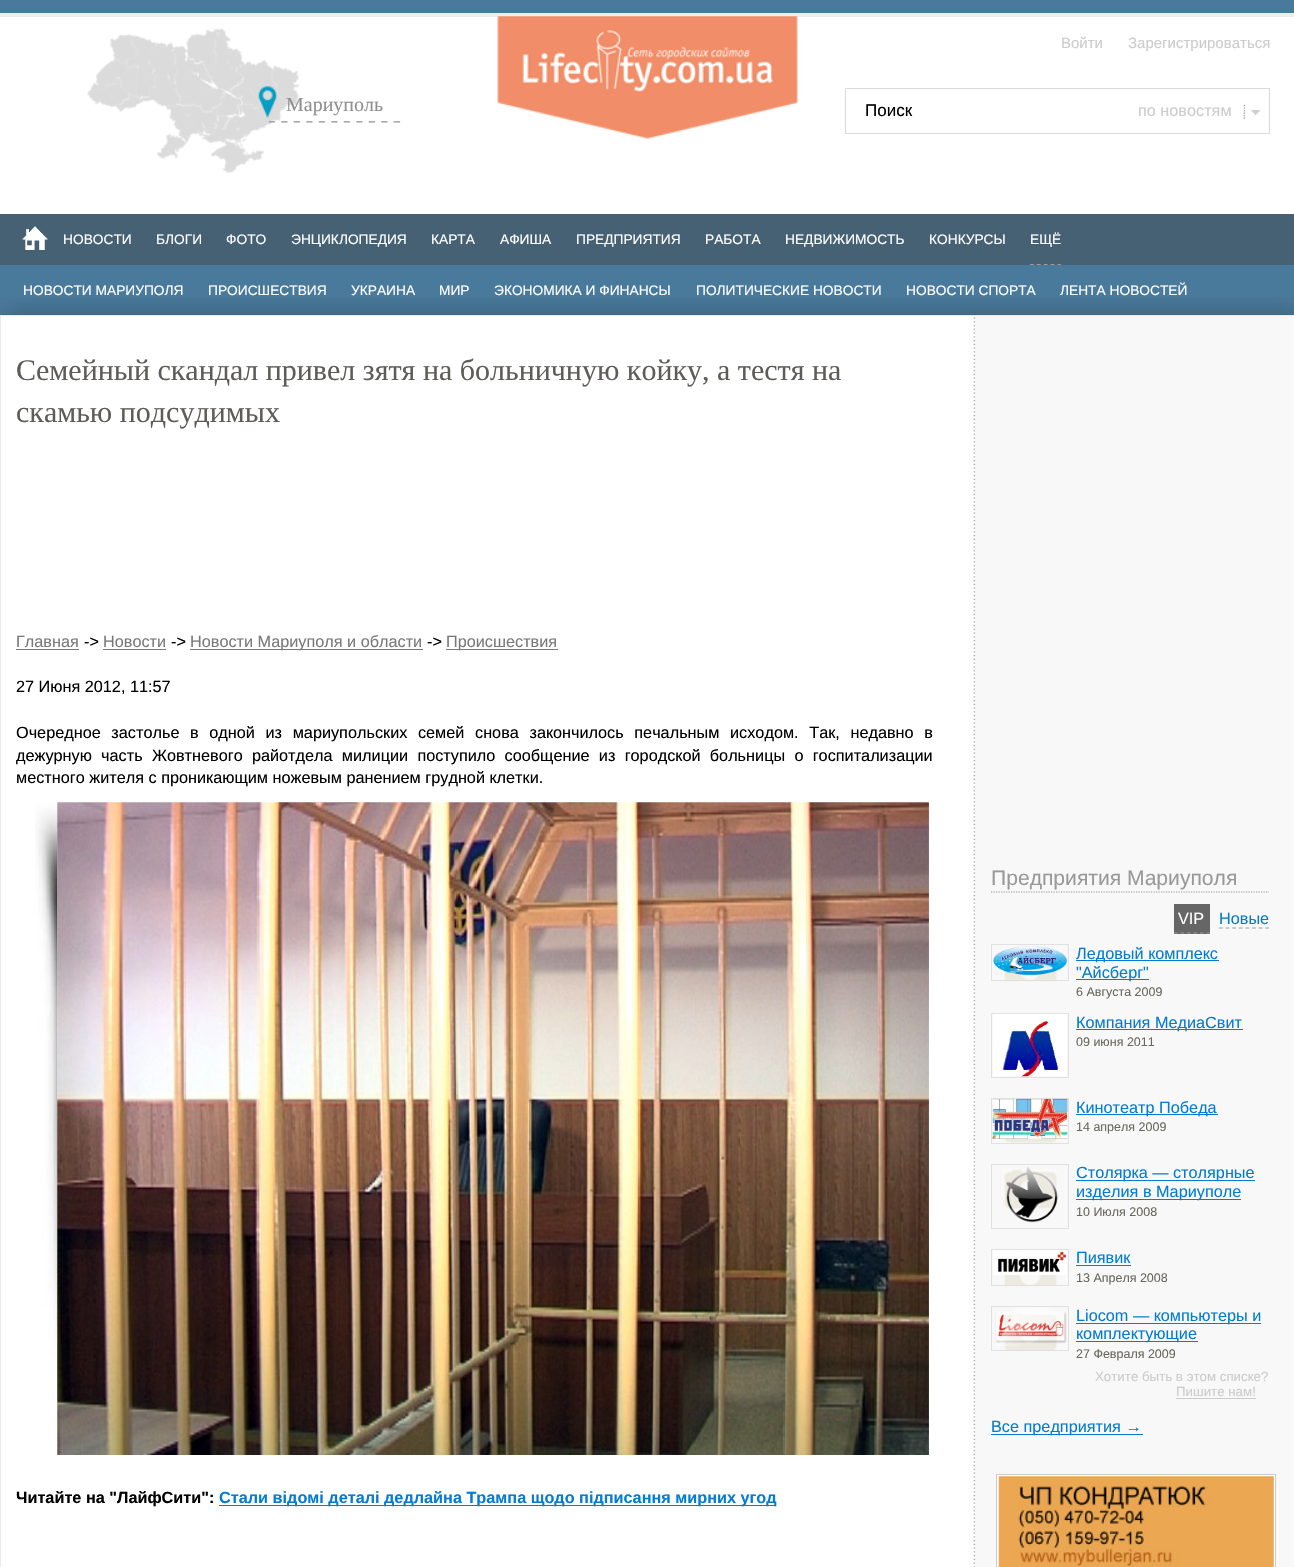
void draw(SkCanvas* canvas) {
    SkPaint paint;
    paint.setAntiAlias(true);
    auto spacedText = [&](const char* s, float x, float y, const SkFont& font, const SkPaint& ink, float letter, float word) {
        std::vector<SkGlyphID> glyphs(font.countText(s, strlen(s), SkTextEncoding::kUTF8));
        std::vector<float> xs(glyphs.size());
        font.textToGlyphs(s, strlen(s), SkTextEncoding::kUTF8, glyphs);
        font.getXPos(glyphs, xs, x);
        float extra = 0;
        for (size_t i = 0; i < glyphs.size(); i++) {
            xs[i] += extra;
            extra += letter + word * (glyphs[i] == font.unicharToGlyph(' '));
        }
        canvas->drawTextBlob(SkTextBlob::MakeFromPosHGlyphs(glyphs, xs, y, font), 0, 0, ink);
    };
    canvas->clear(0xFF49799B);
    paint.setColor(0xFFFFFFFF);
    canvas->drawRect(SkRect::MakeXYWH(0, 17, 1294, 1550), paint);
    canvas->drawImageRect(SkImages::DeferredFromEncodedData(SkData::MakeFromFileName("img1.png")), SkRect::MakeXYWH(87, 28, 212, 145), SkSamplingOptions());
    paint.setColor(0xFFEDEDED);
    canvas->drawRect(SkRect::MakeXYWH(0, 13, 1294, 4), paint);
    canvas->drawImageRect(SkImages::DeferredFromEncodedData(SkData::MakeFromFileName("img2.png")), SkRect::MakeXYWH(497, 16, 301, 123), SkSamplingOptions());
    SkFont font1(fontMgr->matchFamilyStyle("Liberation Sans", SkFontStyle::Normal()), 15);
    font1.setSubpixel(true);
    paint.setColor(0xFFCCCCCC);
    canvas->drawString("Войти", 1061, 48, font1, paint);
    canvas->drawString("Зарегистрироваться", 1128, 48, font1, paint);
    canvas->drawImageRect(SkImages::DeferredFromEncodedData(SkData::MakeFromFileName("img3.png")), SkRect::MakeXYWH(268, 121, 133, 2), SkSamplingOptions());
    SkFont font2(fontMgr->matchFamilyStyle("Liberation Serif", SkFontStyle::Normal()), 20);
    font2.setSubpixel(true);
    paint.setColor(0xFF8F8F8F);
    canvas->drawString("Мариуполь", 286, 111, font2, paint);
    paint.setColor(0xFFDADADA);
    canvas->drawRect(SkRect::MakeXYWH(845, 88, 425, 1), paint);
    canvas->drawRect(SkRect::MakeXYWH(845, 133, 250, 1), paint);
    canvas->drawRect(SkRect::MakeXYWH(845, 88, 1, 46), paint);
    SkFont font3(fontMgr->matchFamilyStyle("Liberation Sans", SkFontStyle::Normal()), 17);
    font3.setSubpixel(true);
    paint.setColor(0xFF000000);
    canvas->drawString("Поиск", 865, 116, font3, paint);
    canvas->drawImageRect(SkImages::DeferredFromEncodedData(SkData::MakeFromFileName("img4.png")), SkRect::MakeXYWH(1243, 105, 18, 14), SkSamplingOptions());
    paint.setColor(0xFFDADADA);
    canvas->drawRect(SkRect::MakeXYWH(1269, 88, 1, 46), paint);
    canvas->drawRect(SkRect::MakeXYWH(1095, 133, 175, 1), paint);
    SkFont font4(fontMgr->matchFamilyStyle("Liberation Sans", SkFontStyle::Normal()), 16.25f);
    font4.setSubpixel(true);
    paint.setColor(0xFFCCCCCC);
    canvas->drawString("по новостям", 1138, 116, font4, paint);
    paint.setColor(0xFF466174);
    canvas->drawRect(SkRect::MakeXYWH(0, 214, 1294, 51), paint);
    canvas->drawImageRect(SkImages::DeferredFromEncodedData(SkData::MakeFromFileName("img5.png")), SkRect::MakeXYWH(22, 226, 26, 24), SkSamplingOptions());
    SkFont font5(fontMgr->matchFamilyStyle("Liberation Sans", SkFontStyle::Normal()), 13.75f);
    font5.setSubpixel(true);
    paint.setColor(0xFFFFFFFF);
    canvas->drawString("НОВОСТИ", 63, 244, font5, paint);
    canvas->drawString("БЛОГИ", 156, 244, font5, paint);
    canvas->drawString("ФОТО", 226, 244, font5, paint);
    canvas->drawString("ЭНЦИКЛОПЕДИЯ", 291, 244, font5, paint);
    canvas->drawString("КАРТА", 431, 244, font5, paint);
    canvas->drawString("АФИША", 500, 244, font5, paint);
    canvas->drawString("ПРЕДПРИЯТИЯ", 576, 244, font5, paint);
    canvas->drawString("РАБОТА", 705, 244, font5, paint);
    canvas->drawString("НЕДВИЖИМОСТЬ", 785, 244, font5, paint);
    canvas->drawString("КОНКУРСЫ", 929, 244, font5, paint);
    paint.setColor(0xFF49799B);
    canvas->drawRect(SkRect::MakeXYWH(0, 265, 1294, 50), paint);
    paint.setStyle(SkPaint::kStroke_Style);
    paint.setStrokeWidth(1.2f);
    paint.setColor(0xFF9C9C9C);
    paint.setPathEffect(SkDashPathEffect::Make({{3.75f, 3.12f}}, 0));
    canvas->drawPath(SkPathBuilder().moveTo(1030, 264.5f).lineTo(1061, 264.5f).detach(), paint);
    paint.setPathEffect(nullptr);
    paint.setStyle(SkPaint::kFill_Style);
    paint.setColor(0xFFFFFFFF);
    canvas->drawString("EЩЁ", 1030, 244, font5, paint);
    canvas->drawString("НОВОСТИ МАРИУПОЛЯ", 23, 295, font5, paint);
    canvas->drawString("ПРОИСШЕСТВИЯ", 208, 295, font5, paint);
    canvas->drawString("УКРАИНА", 351, 295, font5, paint);
    canvas->drawString("МИР", 439, 295, font5, paint);
    canvas->drawString("ЭКОНОМИКА И ФИНАНСЫ", 494, 295, font5, paint);
    canvas->drawString("ПОЛИТИЧЕСКИЕ НОВОСТИ", 696, 295, font5, paint);
    canvas->drawString("НОВОСТИ СПОРТА", 906, 295, font5, paint);
    canvas->drawString("ЛЕНТА НОВОСТЕЙ", 1060, 295, font5, paint);
    canvas->save();
    canvas->clipRect(SkRect::MakeXYWH(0, 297, 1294, 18));
    paint.setColor(0x40000000);
    paint.setMaskFilter(SkMaskFilter::MakeBlur(kNormal_SkBlurStyle, 12.5f));
    canvas->drawRect(SkRect::MakeXYWH(6, 315, 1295, 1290), paint);
    paint.setMaskFilter(nullptr);
    canvas->restore();
    canvas->drawImageRect(SkImages::DeferredFromEncodedData(SkData::MakeFromFileName("img6.png")), SkRect::MakeXYWH(973, 316, 321, 1251), SkSamplingOptions());
    paint.setStyle(SkPaint::kStroke_Style);
    paint.setStrokeWidth(1);
    paint.setColor(0xFFE8E9EA);
    canvas->drawRect(SkRect::MakeXYWH(0.5f, 315.5f, 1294, 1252), paint);
    SkFont font6(fontMgr->matchFamilyStyle("Liberation Serif", SkFontStyle::Normal()), 30);
    font6.setSubpixel(true);
    paint.setStyle(SkPaint::kFill_Style);
    paint.setColor(0xFF5E5C58);
    canvas->drawString("Семейный скандал привел зятя на больничную койку, а тестя на", 16, 380, font6, paint);
    canvas->drawString("скамью подсудимых", 16, 422, font6, paint);
    paint.setColor(0xFF797979);
    canvas->drawString("Главная", 16, 647, font4, paint);
    canvas->drawRect(SkRect::MakeXYWH(16, 649, 63, 1), paint);
    paint.setColor(0xFF000000);
    canvas->drawString("->", 84, 647, font4, paint);
    paint.setColor(0xFF797979);
    canvas->drawString("Новости", 103, 647, font4, paint);
    canvas->drawRect(SkRect::MakeXYWH(103, 649, 63, 1), paint);
    paint.setColor(0xFF000000);
    canvas->drawString("->", 171, 647, font4, paint);
    paint.setColor(0xFF797979);
    canvas->drawRect(SkRect::MakeXYWH(190, 649, 233, 1), paint);
    canvas->drawString("Новости Мариуполя и области", 190, 647, font4, paint);
    paint.setColor(0xFF000000);
    canvas->drawString("->", 427, 647, font4, paint);
    paint.setColor(0xFF797979);
    canvas->drawRect(SkRect::MakeXYWH(446, 649, 112, 1), paint);
    canvas->drawString("Происшествия", 446, 647, font4, paint);
    paint.setColor(0xFF000000);
    canvas->drawString("27 Июня 2012, 11:57", 16, 692, font4, paint);
    spacedText("Очередное застолье в одной из мариупольских семей снова закончилось печальным исходом. Так, недавно в", 16, 738, font4, paint, 0, 6.1f);
    spacedText("дежурную часть Жовтневого райотдела милиции поступило сообщение из городской больницы о госпитализации", 16, 761, font4, paint, 0, 4.75f);
    canvas->drawString("местного жителя с проникающим ножевым ранением грудной клетки.", 16, 783, font4, paint);
    canvas->drawImageRect(SkImages::DeferredFromEncodedData(SkData::MakeFromFileName("img7.png")), SkRect::MakeXYWH(35, 802, 894, 653), SkSamplingOptions());
    canvas->drawImageRect(SkImages::DeferredFromEncodedData(SkData::MakeFromFileName("img8.png")), SkRect::MakeXYWH(57, 802, 872, 653), SkSamplingOptions());
    SkFont font7(fontMgr->matchFamilyStyle("Liberation Sans", SkFontStyle::Bold()), 16.25f);
    font7.setSubpixel(true);
    canvas->drawString("Читайте на \"ЛайфСити\":", 16, 1503, font7, paint);
    paint.setColor(0xFF037DD3);
    canvas->drawRect(SkRect::MakeXYWH(219, 1505, 557, 1), paint);
    canvas->drawString("Стали відомі деталі дедлайна Трампа щодо підписання мирних угод", 219, 1503, font7, paint);
    paint.setStyle(SkPaint::kStroke_Style);
    paint.setStrokeWidth(1.2f);
    paint.setColor(0xFF999999);
    paint.setPathEffect(SkDashPathEffect::Make({{1.25f, 1.25f}}, 0));
    canvas->drawPath(SkPathBuilder().moveTo(991, 892).lineTo(1269, 892).detach(), paint);
    paint.setPathEffect(nullptr);
    SkFont font8(fontMgr->matchFamilyStyle("Liberation Sans", SkFontStyle::Normal()), 21.1f);
    font8.setSubpixel(true);
    paint.setStyle(SkPaint::kFill_Style);
    canvas->drawString("Предприятия Мариуполя", 991, 885, font8, paint);
    paint.setColor(0xFF666666);
    canvas->drawRect(SkRect::MakeXYWH(1174, 904, 36, 30), paint);
    paint.setColor(0xFFFFFFFF);
    canvas->drawString("VIP", 1178, 924, font4, paint);
    paint.setStyle(SkPaint::kStroke_Style);
    paint.setColor(0xFF9C9C9C);
    paint.setPathEffect(SkDashPathEffect::Make({{3.75f, 2.75f}}, 0));
    canvas->drawPath(SkPathBuilder().moveTo(1174, 933).lineTo(1210, 933).detach(), paint);
    paint.setPathEffect(nullptr);
    paint.setStyle(SkPaint::kFill_Style);
    paint.setColor(0xFF037DD3);
    canvas->drawString("Новые", 1219, 924, font4, paint);
    paint.setStyle(SkPaint::kStroke_Style);
    paint.setColor(0xFF9C9C9C);
    paint.setPathEffect(SkDashPathEffect::Make({{3.75f, 2.86f}}, 0));
    canvas->drawPath(SkPathBuilder().moveTo(1219, 928).lineTo(1269, 928).detach(), paint);
    paint.setPathEffect(nullptr);
    canvas->drawImageRect(SkImages::DeferredFromEncodedData(SkData::MakeFromFileName("img9.png")), SkRect::MakeXYWH(1003, 949, 55, 33), SkSamplingOptions());
    paint.setStrokeWidth(1);
    paint.setColor(0xFFE1E1E1);
    canvas->drawRect(SkRect::MakeXYWH(991.5f, 944.5f, 77, 36), paint);
    canvas->drawImageRect(SkImages::DeferredFromEncodedData(SkData::MakeFromFileName("img10.png")), SkRect::MakeXYWH(993, 946, 75, 30), SkSamplingOptions());
    paint.setStyle(SkPaint::kFill_Style);
    paint.setColor(0xFF037DD3);
    canvas->drawRect(SkRect::MakeXYWH(1076, 960, 143, 1), paint);
    canvas->drawString("Ледовый комплекс", 1076, 959, font4, paint);
    canvas->drawRect(SkRect::MakeXYWH(1076, 979, 73, 1), paint);
    canvas->drawString("\"Айсберг\"", 1076, 978, font4, paint);
    SkFont font9(fontMgr->matchFamilyStyle("Liberation Sans", SkFontStyle::Normal()), 12.5f);
    font9.setSubpixel(true);
    paint.setColor(0xFF68685E);
    canvas->drawString("6 Августа 2009", 1076, 996, font9, paint);
    paint.setStyle(SkPaint::kStroke_Style);
    paint.setColor(0xFFE1E1E1);
    canvas->drawRect(SkRect::MakeXYWH(991.5f, 1013.5f, 77, 64), paint);
    canvas->drawImageRect(SkImages::DeferredFromEncodedData(SkData::MakeFromFileName("img11.png")), SkRect::MakeXYWH(993, 1014, 74, 63), SkSamplingOptions());
    paint.setStyle(SkPaint::kFill_Style);
    paint.setColor(0xFF037DD3);
    canvas->drawRect(SkRect::MakeXYWH(1076, 1029, 167, 1), paint);
    canvas->drawString("Компания МедиаСвит", 1076, 1028, font4, paint);
    paint.setColor(0xFF68685E);
    canvas->drawString("09 июня 2011", 1076, 1046, font9, paint);
    canvas->drawImageRect(SkImages::DeferredFromEncodedData(SkData::MakeFromFileName("img12.png")), SkRect::MakeXYWH(1002, 1138, 56, 5), SkSamplingOptions());
    paint.setStyle(SkPaint::kStroke_Style);
    paint.setColor(0xFFE1E1E1);
    canvas->drawRect(SkRect::MakeXYWH(991.5f, 1098.5f, 77, 45), paint);
    canvas->drawImageRect(SkImages::DeferredFromEncodedData(SkData::MakeFromFileName("img13.png")), SkRect::MakeXYWH(992, 1098, 76, 41), SkSamplingOptions());
    paint.setStyle(SkPaint::kFill_Style);
    paint.setColor(0xFF037DD3);
    canvas->drawRect(SkRect::MakeXYWH(1076, 1114, 142, 1), paint);
    canvas->drawString("Кинотеатр Победа", 1076, 1113, font4, paint);
    paint.setColor(0xFF68685E);
    canvas->drawString("14 апреля 2009", 1076, 1131, font9, paint);
    canvas->drawImageRect(SkImages::DeferredFromEncodedData(SkData::MakeFromFileName("img14.png")), SkRect::MakeXYWH(1002, 1169, 56, 43), SkSamplingOptions());
    paint.setStyle(SkPaint::kStroke_Style);
    paint.setColor(0xFFE1E1E1);
    canvas->drawRect(SkRect::MakeXYWH(991.5f, 1164.5f, 77, 64), paint);
    canvas->drawImageRect(SkImages::DeferredFromEncodedData(SkData::MakeFromFileName("img15.png")), SkRect::MakeXYWH(1006, 1166, 52, 57), SkSamplingOptions());
    paint.setStyle(SkPaint::kFill_Style);
    paint.setColor(0xFF037DD3);
    canvas->drawRect(SkRect::MakeXYWH(1076, 1180, 179, 1), paint);
    canvas->drawString("Столярка — столярные", 1076, 1178, font4, paint);
    canvas->drawRect(SkRect::MakeXYWH(1076, 1199, 165, 1), paint);
    canvas->drawString("изделия в Мариуполе", 1076, 1197, font4, paint);
    paint.setColor(0xFF68685E);
    canvas->drawString("10 Июля 2008", 1076, 1216, font9, paint);
    canvas->drawImageRect(SkImages::DeferredFromEncodedData(SkData::MakeFromFileName("img16.png")), SkRect::MakeXYWH(1003, 1275, 55, 12), SkSamplingOptions());
    paint.setStyle(SkPaint::kStroke_Style);
    paint.setColor(0xFFE1E1E1);
    canvas->drawRect(SkRect::MakeXYWH(991.5f, 1249.5f, 77, 36), paint);
    canvas->drawImageRect(SkImages::DeferredFromEncodedData(SkData::MakeFromFileName("img17.png")), SkRect::MakeXYWH(993, 1250, 74, 25), SkSamplingOptions());
    paint.setStyle(SkPaint::kFill_Style);
    paint.setColor(0xFF037DD3);
    canvas->drawString("Пиявик", 1076, 1263, font4, paint);
    canvas->drawRect(SkRect::MakeXYWH(1076, 1265, 55, 1), paint);
    paint.setColor(0xFF68685E);
    canvas->drawString("13 Апреля 2008", 1076, 1282, font9, paint);
    canvas->drawImageRect(SkImages::DeferredFromEncodedData(SkData::MakeFromFileName("img18.png")), SkRect::MakeXYWH(1002, 1311, 56, 39), SkSamplingOptions());
    paint.setStyle(SkPaint::kStroke_Style);
    paint.setColor(0xFFE1E1E1);
    canvas->drawRect(SkRect::MakeXYWH(991.5f, 1306.5f, 77, 44), paint);
    canvas->drawImageRect(SkImages::DeferredFromEncodedData(SkData::MakeFromFileName("img19.png")), SkRect::MakeXYWH(995, 1308, 72, 38), SkSamplingOptions());
    paint.setStyle(SkPaint::kFill_Style);
    paint.setColor(0xFF037DD3);
    canvas->drawRect(SkRect::MakeXYWH(1076, 1323, 185, 1), paint);
    canvas->drawString("Liocom — компьютеры и", 1076, 1321, font4, paint);
    canvas->drawRect(SkRect::MakeXYWH(1076, 1341, 122, 1), paint);
    canvas->drawString("комплектующие", 1076, 1339, font4, paint);
    paint.setColor(0xFF68685E);
    canvas->drawString("27 Февраля 2009", 1076, 1358, font9, paint);
    SkFont font10(fontMgr->matchFamilyStyle("Liberation Sans", SkFontStyle::Normal()), 13.3f);
    font10.setSubpixel(true);
    paint.setColor(0xFFCCCCCC);
    canvas->drawString("Хотите быть в этом списке?", 1095, 1381, font10, paint);
    canvas->drawString("Пишите нам!", 1176, 1396, font10, paint);
    canvas->drawRect(SkRect::MakeXYWH(1176, 1398, 80, 1), paint);
    paint.setColor(0xFF037DD3);
    canvas->drawRect(SkRect::MakeXYWH(991, 1434, 152, 1), paint);
    canvas->drawString("Все предприятия →", 991, 1432, font4, paint);
    paint.setColor(0xFFFFFFFF);
    canvas->drawRect(SkRect::MakeXYWH(996.5f, 1474.5f, 279, 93), paint);
    paint.setStyle(SkPaint::kStroke_Style);
    paint.setColor(0xFFCCCCCC);
    canvas->drawRect(SkRect::MakeXYWH(996.5f, 1474.5f, 279, 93), paint);
    canvas->drawImageRect(SkImages::DeferredFromEncodedData(SkData::MakeFromFileName("img20.png")), SkRect::MakeXYWH(998, 1476, 276, 91), SkSamplingOptions());
}
